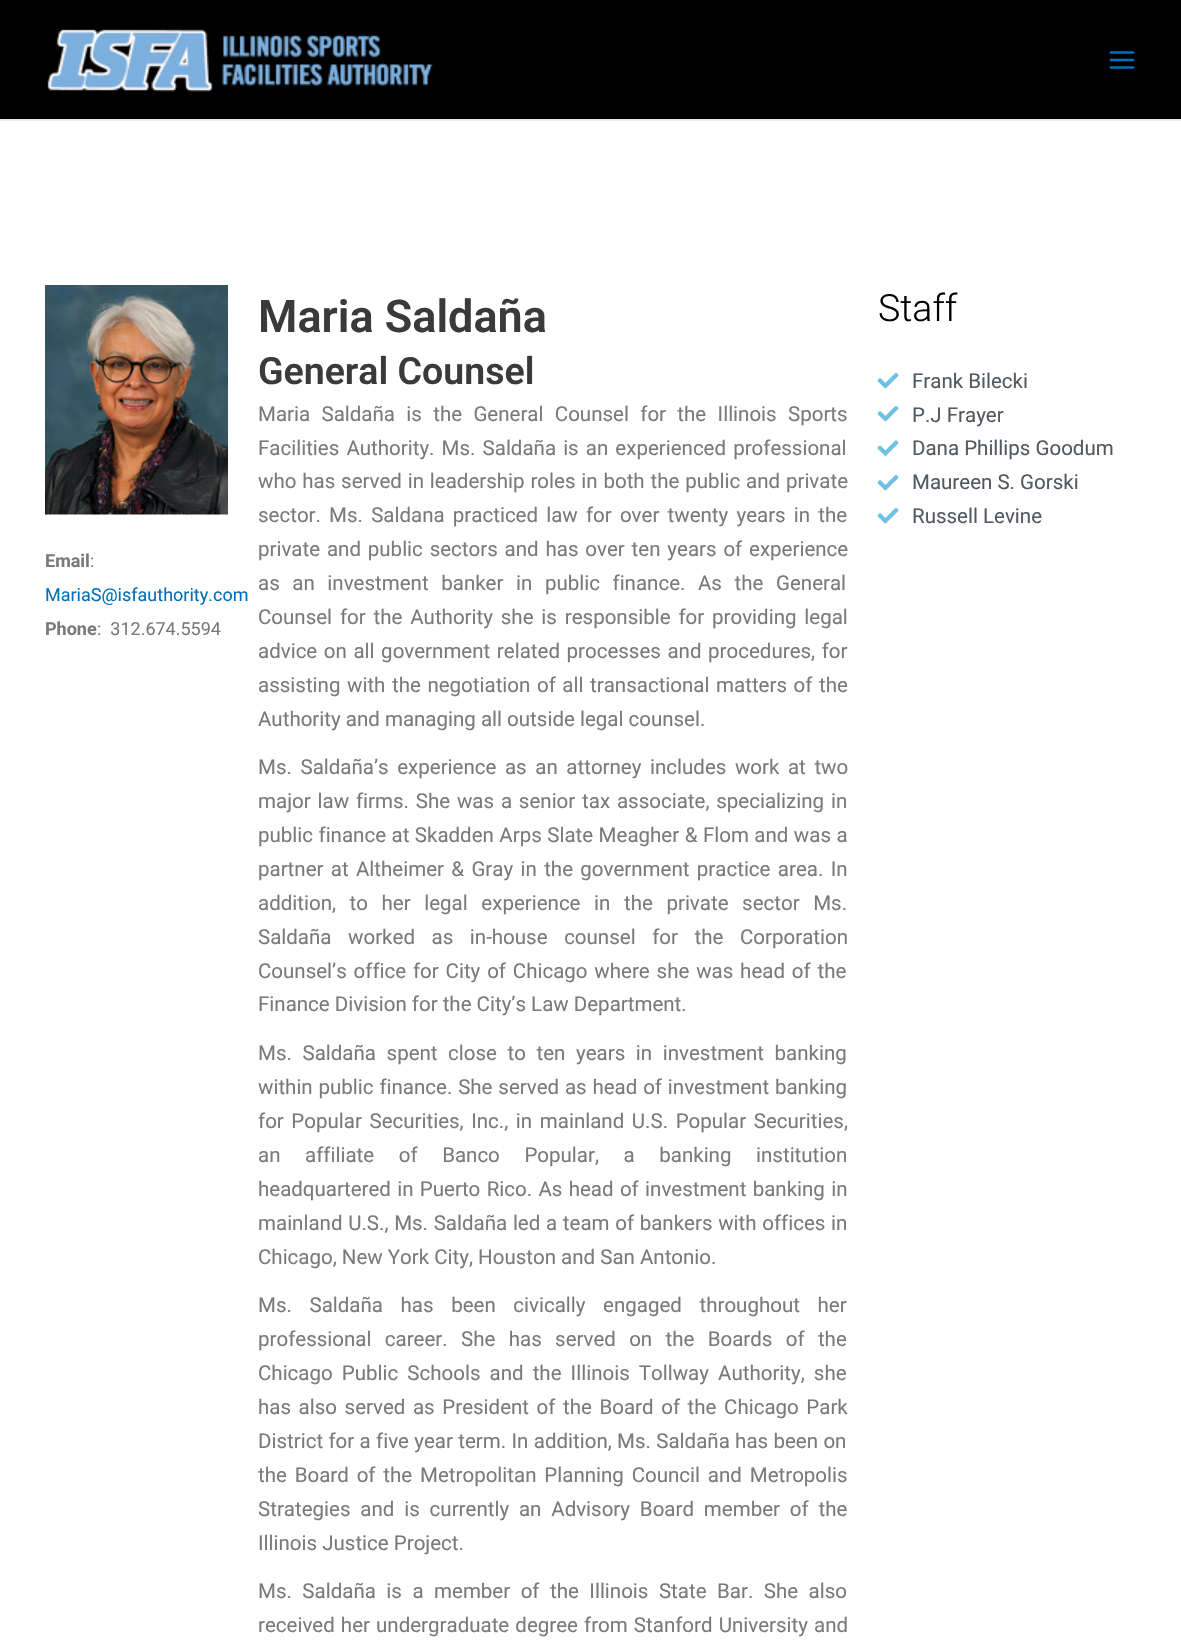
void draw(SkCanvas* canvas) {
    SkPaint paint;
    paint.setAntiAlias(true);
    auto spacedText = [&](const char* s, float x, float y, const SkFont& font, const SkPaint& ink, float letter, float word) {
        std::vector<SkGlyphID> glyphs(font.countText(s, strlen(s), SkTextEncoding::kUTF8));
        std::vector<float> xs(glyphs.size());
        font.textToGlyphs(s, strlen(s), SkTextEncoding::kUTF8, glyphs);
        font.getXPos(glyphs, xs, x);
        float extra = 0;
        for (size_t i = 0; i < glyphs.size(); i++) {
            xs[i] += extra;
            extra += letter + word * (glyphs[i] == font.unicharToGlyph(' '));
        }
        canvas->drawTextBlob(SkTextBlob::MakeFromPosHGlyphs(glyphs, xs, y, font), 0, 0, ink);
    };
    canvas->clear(0xFFFFFFFF);
    paint.setColor(0xFF000000);
    canvas->drawRect(SkRect::MakeXYWH(0, 0, 1181, 119), paint);
    paint.setColor(0xFFEAEAEA);
    canvas->drawRect(SkRect::MakeXYWH(0, 119, 1181, 2), paint);
    canvas->drawImageRect(SkImages::DeferredFromEncodedData(SkData::MakeFromFileName("img1.png")), SkRect::MakeXYWH(47, 29, 386, 63), SkSamplingOptions());
    canvas->drawImageRect(SkImages::DeferredFromEncodedData(SkData::MakeFromFileName("img2.png")), SkRect::MakeXYWH(1109, 51, 26, 18), SkSamplingOptions());
    canvas->drawImageRect(SkImages::DeferredFromEncodedData(SkData::MakeFromFileName("img3.png")), SkRect::MakeXYWH(45, 285, 183, 230), SkSamplingOptions());
    SkFont font1(fontMgr->matchFamilyStyle("Roboto", SkFontStyle::Bold()), 18);
    font1.setSubpixel(true);
    paint.setColor(0xFF7A7A7A);
    canvas->drawString("Email", 45, 567, font1, paint);
    SkFont font2(fontMgr->matchFamilyStyle("Roboto", SkFontStyle::Normal()), 18);
    font2.setSubpixel(true);
    canvas->drawString(":", 90, 567, font2, paint);
    paint.setColor(0xFF0170B9);
    canvas->drawString("MariaS@isfauthority.com", 45, 601, font2, paint);
    paint.setColor(0xFF7A7A7A);
    canvas->drawString("Phone", 45, 635, font1, paint);
    canvas->drawString(":  312.674.5594", 97, 635, font2, paint);
    SkFont font3(fontMgr->matchFamilyStyle("Roboto", SkFontStyle(600, SkFontStyle::kNormal_Width, SkFontStyle::kUpright_Slant)), 45);
    font3.setSubpixel(true);
    paint.setColor(0xFF3A3A3A);
    canvas->drawString("Maria Saldaña", 258, 332, font3, paint);
    SkFont font4(fontMgr->matchFamilyStyle("Roboto", SkFontStyle(600, SkFontStyle::kNormal_Width, SkFontStyle::kUpright_Slant)), 37.5f);
    font4.setSubpixel(true);
    canvas->drawString("General Counsel", 258, 384, font4, paint);
    SkFont font5(fontMgr->matchFamilyStyle("Roboto", SkFontStyle::Normal()), 20.5f);
    font5.setSubpixel(true);
    paint.setColor(0xFF7A7A7A);
    spacedText("Maria Saldaña is the General Counsel for the Illinois Sports", 258, 421, font5, paint, 0, 6.25f);
    spacedText("Facilities Authority. Ms. Saldaña is an experienced professional", 258, 455, font5, paint, 0, 2);
    spacedText("who has served in leadership roles in both the public and private", 258, 488, font5, paint, 0, 0.75f);
    spacedText("sector. Ms. Saldana practiced law for over twenty years in the", 258, 522, font5, paint, 0, 3.1f);
    spacedText("private and public sectors and has over ten years of experience", 258, 556, font5, paint, 0, 1.75f);
    spacedText("as an investment banker in public finance. As the General", 258, 590, font5, paint, 0, 7.5f);
    spacedText("Counsel for the Authority she is responsible for providing legal", 258, 624, font5, paint, 0, 2.75f);
    spacedText("advice on all government related processes and procedures, for", 258, 658, font5, paint, 0, 1.5f);
    spacedText("assisting with the negotiation of all transactional matters of the", 258, 692, font5, paint, 0, 1.5f);
    canvas->drawString("Authority and managing all outside legal counsel.", 258, 726, font5, paint);
    spacedText("Ms. Saldaña’s experience as an attorney includes work at two", 258, 774, font5, paint, 0, 3.5f);
    spacedText("major law firms. She was a senior tax associate, specializing in", 258, 808, font5, paint, 0, 1.75f);
    spacedText("public finance at Skadden Arps Slate Meagher & Flom and was a", 258, 842, font5, paint, 0, 0.4f);
    spacedText("partner at Altheimer & Gray in the government practice area. In", 258, 876, font5, paint, 0, 2.25f);
    spacedText("addition, to her legal experience in the private sector Ms.", 258, 910, font5, paint, 0, 8.5f);
    spacedText("Saldaña worked as in-house counsel for the Corporation", 258, 944, font5, paint, 0, 11.5f);
    spacedText("Counsel’s office for City of Chicago where she was head of the", 258, 978, font5, paint, 0, 1.75f);
    canvas->drawString("Finance Division for the City’s Law Department.", 258, 1011, font5, paint);
    spacedText("Ms. Saldaña spent close to ten years in investment banking", 258, 1060, font5, paint, 0, 5.5f);
    spacedText("within public finance. She served as head of investment banking", 258, 1094, font5, paint, 0, 0.75f);
    spacedText("for Popular Securities, Inc., in mainland U.S. Popular Securities,", 258, 1128, font5, paint, 0, 2.5f);
    spacedText("an affiliate of Banco Popular, a banking institution", 258, 1162, font5, paint, 0, 19.5f);
    spacedText("headquartered in Puerto Rico. As head of investment banking in", 258, 1196, font5, paint, 0, 1.25f);
    spacedText("mainland U.S., Ms. Saldaña led a team of bankers with offices in", 258, 1230, font5, paint, 0, 0.6f);
    canvas->drawString("Chicago, New York City, Houston and San Antonio.", 258, 1264, font5, paint);
    spacedText("Ms. Saldaña has been civically engaged throughout her", 258, 1312, font5, paint, 0, 12.5f);
    spacedText("professional career. She has served on the Boards of the", 258, 1346, font5, paint, 0, 8.25f);
    spacedText("Chicago Public Schools and the Illinois Tollway Authority, she", 258, 1380, font5, paint, 0, 4);
    spacedText("has also served as President of the Board of the Chicago Park", 258, 1414, font5, paint, 0, 2.5f);
    spacedText("District for a five year term. In addition, Ms. Saldaña has been on", 258, 1448, font5, paint, 0, 0.25f);
    spacedText("the Board of the Metropolitan Planning Council and Metropolis", 258, 1482, font5, paint, 0, 2.75f);
    spacedText("Strategies and is currently an Advisory Board member of the", 258, 1516, font5, paint, 0, 4.75f);
    canvas->drawString("Illinois Justice Project.", 258, 1550, font5, paint);
    spacedText("Ms. Saldaña is a member of the Illinois State Bar. She also", 258, 1598, font5, paint, 0, 5.4f);
    spacedText("received her undergraduate degree from Stanford University and", 258, 1632, font5, paint, 0, 1);
    SkFont font6(fontMgr->matchFamilyStyle("Roboto", SkFontStyle(300, SkFontStyle::kNormal_Width, SkFontStyle::kUpright_Slant)), 37.5f);
    font6.setSubpixel(true);
    paint.setColor(0xFF000000);
    canvas->drawString("Staff", 878, 321, font6, paint);
    canvas->drawImageRect(SkImages::DeferredFromEncodedData(SkData::MakeFromFileName("img4.png")), SkRect::MakeXYWH(877, 372, 22, 17), SkSamplingOptions());
    paint.setColor(0xFF54595F);
    canvas->drawString("Frank Bilecki", 912, 388, font5, paint);
    canvas->drawImageRect(SkImages::DeferredFromEncodedData(SkData::MakeFromFileName("img4.png")), SkRect::MakeXYWH(877, 405, 22, 17), SkSamplingOptions());
    canvas->drawString("P.J Frayer", 912, 422, font5, paint);
    canvas->drawImageRect(SkImages::DeferredFromEncodedData(SkData::MakeFromFileName("img5.png")), SkRect::MakeXYWH(877, 440, 22, 16), SkSamplingOptions());
    canvas->drawString("Dana Phillips Goodum", 912, 455, font5, paint);
    canvas->drawImageRect(SkImages::DeferredFromEncodedData(SkData::MakeFromFileName("img4.png")), SkRect::MakeXYWH(877, 474, 22, 17), SkSamplingOptions());
    canvas->drawString("Maureen S. Gorski", 912, 489, font5, paint);
    canvas->drawImageRect(SkImages::DeferredFromEncodedData(SkData::MakeFromFileName("img4.png")), SkRect::MakeXYWH(877, 507, 22, 17), SkSamplingOptions());
    canvas->drawString("Russell Levine", 912, 523, font5, paint);
}
